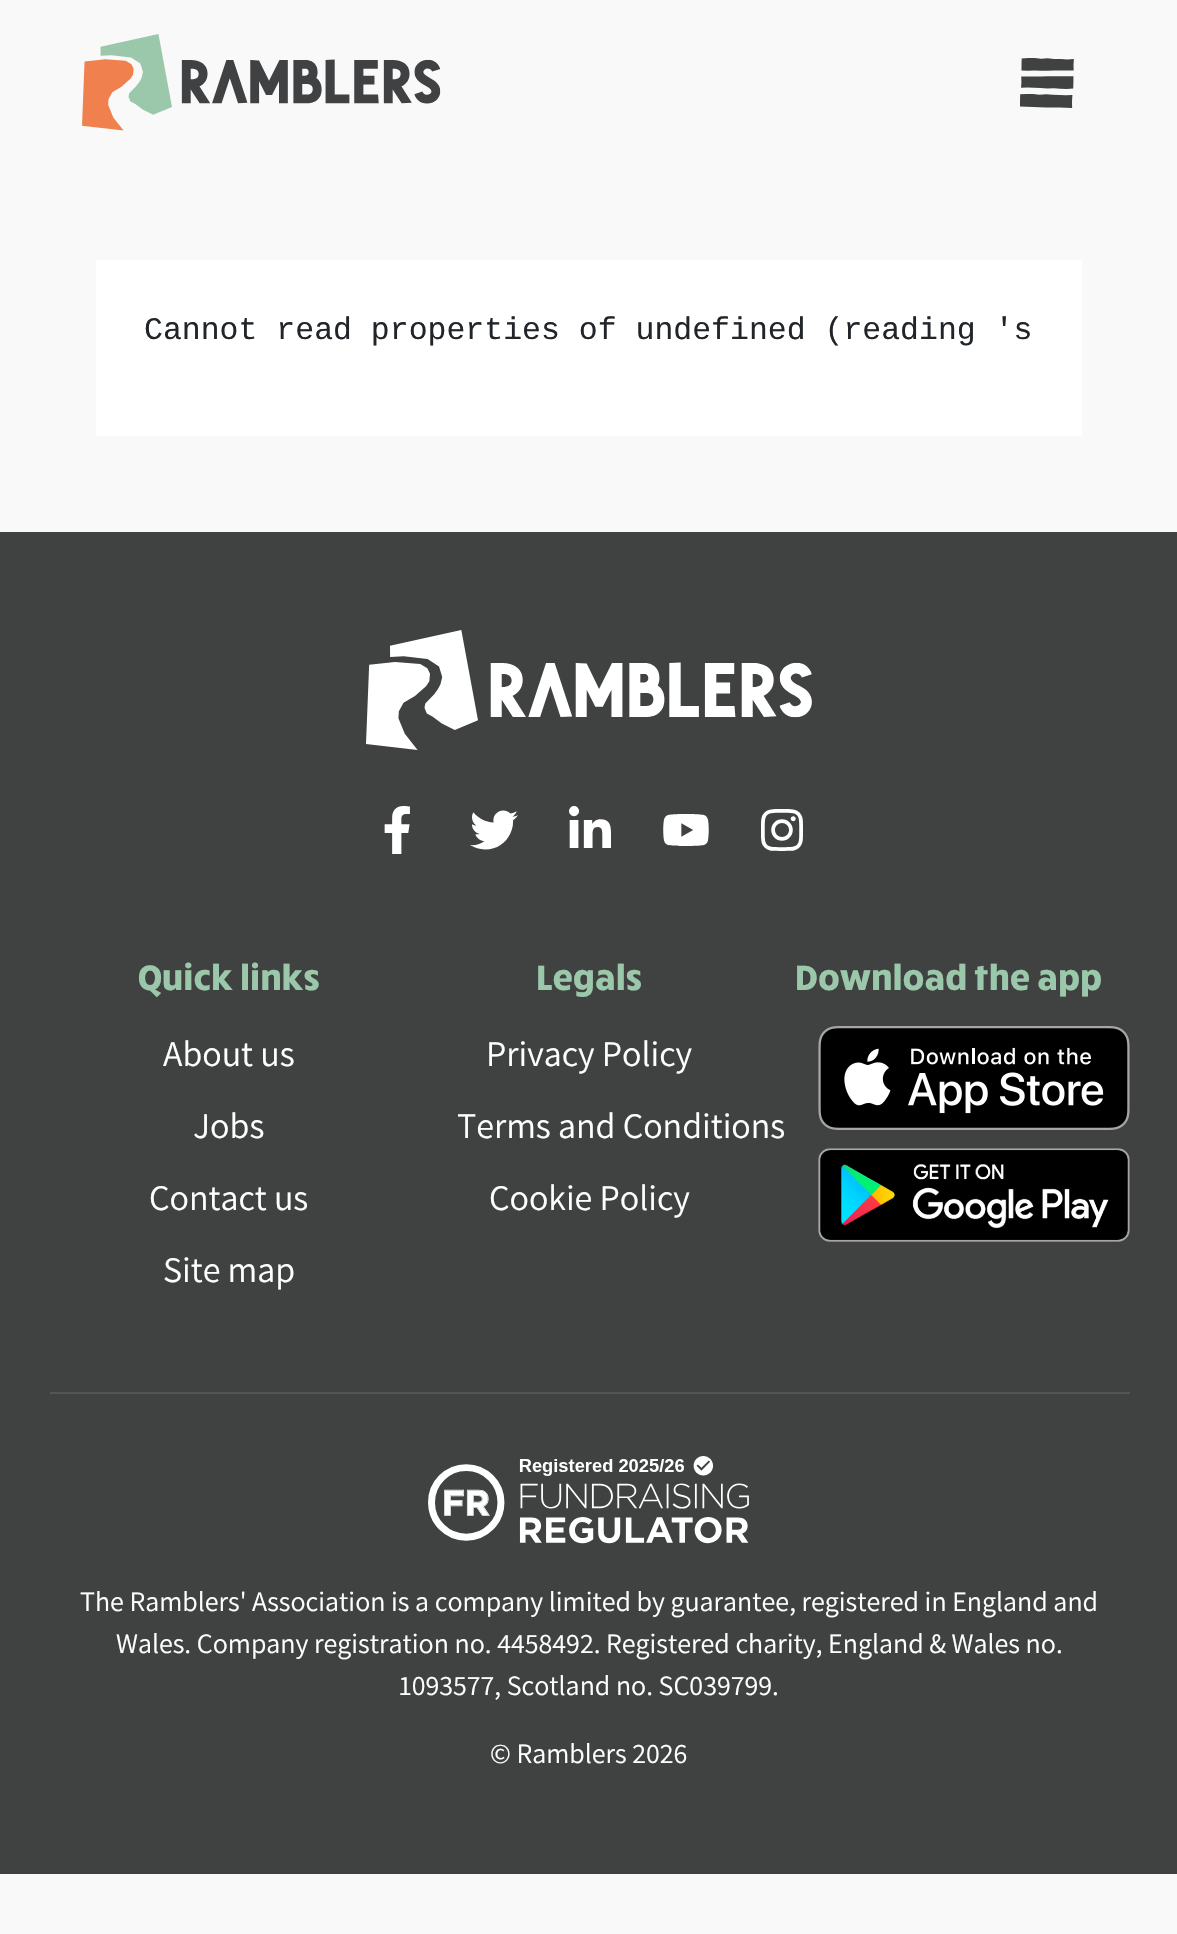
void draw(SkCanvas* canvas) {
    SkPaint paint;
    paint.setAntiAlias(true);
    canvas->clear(0xFFF9F9F9);
    canvas->drawImageRect(SkImages::DeferredFromEncodedData(SkData::MakeFromFileName("img1.png")), SkRect::MakeXYWH(82, 34, 359, 97), SkSamplingOptions());
    canvas->drawImageRect(SkImages::DeferredFromEncodedData(SkData::MakeFromFileName("img2.png")), SkRect::MakeXYWH(1020, 58, 54, 50), SkSamplingOptions());
    paint.setColor(0xFFFFFFFF);
    canvas->drawRect(SkRect::MakeXYWH(96, 260, 986, 176), paint);
    SkFont font1(fontMgr->matchFamilyStyle("Liberation Mono", SkFontStyle::Normal()), 31.5f);
    font1.setSubpixel(true);
    paint.setColor(0xFF212529);
    canvas->drawString("Cannot read properties of undefined (reading 's", 144, 339, font1, paint);
    paint.setColor(0xFF404141);
    canvas->drawRect(SkRect::MakeXYWH(0, 532, 1177, 1342), paint);
    canvas->drawImageRect(SkImages::DeferredFromEncodedData(SkData::MakeFromFileName("img3.png")), SkRect::MakeXYWH(366, 630, 446, 120), SkSamplingOptions());
    canvas->drawImageRect(SkImages::DeferredFromEncodedData(SkData::MakeFromFileName("img4.png")), SkRect::MakeXYWH(384, 806, 26, 48), SkSamplingOptions());
    canvas->drawImageRect(SkImages::DeferredFromEncodedData(SkData::MakeFromFileName("img5.png")), SkRect::MakeXYWH(470, 810, 48, 40), SkSamplingOptions());
    canvas->drawImageRect(SkImages::DeferredFromEncodedData(SkData::MakeFromFileName("img6.png")), SkRect::MakeXYWH(569, 806, 42, 42), SkSamplingOptions());
    canvas->drawImageRect(SkImages::DeferredFromEncodedData(SkData::MakeFromFileName("img7.png")), SkRect::MakeXYWH(663, 814, 46, 32), SkSamplingOptions());
    canvas->drawImageRect(SkImages::DeferredFromEncodedData(SkData::MakeFromFileName("img8.png")), SkRect::MakeXYWH(761, 809, 42, 42), SkSamplingOptions());
    SkFont font2(fontMgr->matchFamilyStyle("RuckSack", SkFontStyle::Bold()), 36);
    font2.setSubpixel(true);
    paint.setColor(0xFF9BC8AB);
    canvas->drawString("Quick links", 138, 990, font2, paint);
    SkFont font3(fontMgr->matchFamilyStyle("Assistant", SkFontStyle(200, SkFontStyle::kNormal_Width, SkFontStyle::kUpright_Slant)), 36);
    font3.setSubpixel(true);
    paint.setColor(0xFFFFFFFF);
    canvas->drawString("About us", 163, 1066, font3, paint);
    canvas->drawString("Jobs", 193, 1138, font3, paint);
    canvas->drawString("Contact us", 149, 1210, font3, paint);
    canvas->drawString("Site map", 163, 1282, font3, paint);
    paint.setColor(0xFF9BC8AB);
    canvas->drawString("Legals", 536, 990, font2, paint);
    paint.setColor(0xFFFFFFFF);
    canvas->drawString("Privacy Policy", 486, 1066, font3, paint);
    canvas->drawString("Terms and Conditions", 457, 1138, font3, paint);
    canvas->drawString("Cookie Policy", 489, 1210, font3, paint);
    paint.setColor(0xFF9BC8AB);
    canvas->drawString("Download the app", 795, 990, font2, paint);
    canvas->drawImageRect(SkImages::DeferredFromEncodedData(SkData::MakeFromFileName("img9.png")), SkRect::MakeXYWH(818, 1026, 312, 104), SkSamplingOptions());
    canvas->drawImageRect(SkImages::DeferredFromEncodedData(SkData::MakeFromFileName("img10.png")), SkRect::MakeXYWH(818, 1148, 312, 94), SkSamplingOptions());
    paint.setColor(0xFF535454);
    canvas->drawRect(SkRect::MakeXYWH(50, 1392, 1080, 2), paint);
    canvas->drawImageRect(SkImages::DeferredFromEncodedData(SkData::MakeFromFileName("img11.png")), SkRect::MakeXYWH(428, 1456, 321, 88), SkSamplingOptions());
    SkFont font4(fontMgr->matchFamilyStyle("Assistant", SkFontStyle(200, SkFontStyle::kNormal_Width, SkFontStyle::kUpright_Slant)), 28);
    font4.setSubpixel(true);
    paint.setColor(0xFFFFFFFF);
    canvas->drawString("The Ramblers' Association is a company limited by guarantee, registered in England and", 80, 1611, font4, paint);
    canvas->drawString("Wales. Company registration no. 4458492. Registered charity, England & Wales no.", 116, 1653, font4, paint);
    canvas->drawString("1093577, Scotland no. SC039799.", 399, 1695, font4, paint);
    canvas->drawString("© Ramblers 2026", 490, 1763, font4, paint);
}
